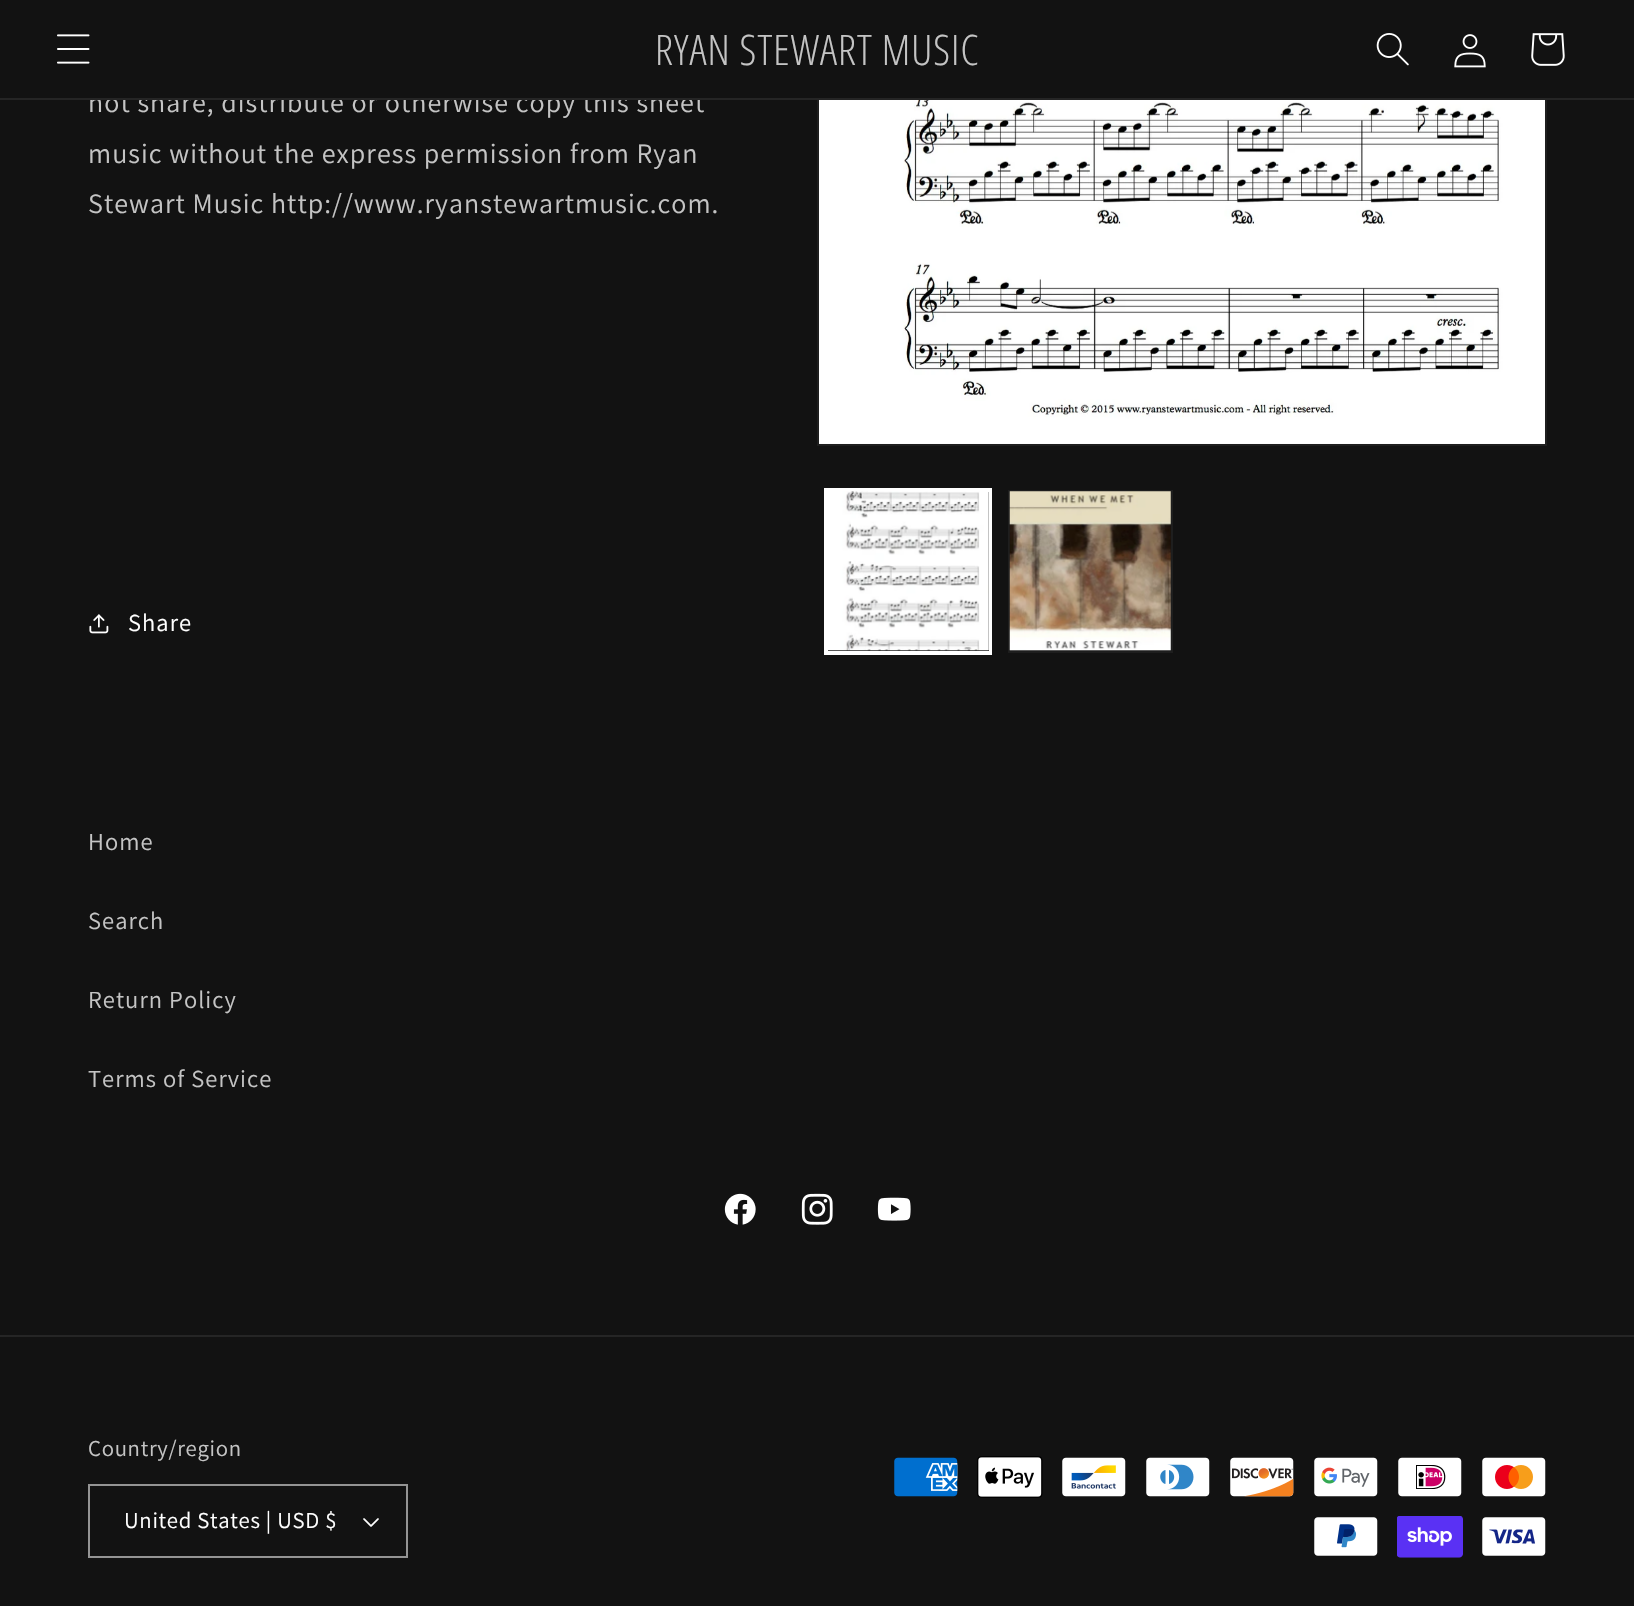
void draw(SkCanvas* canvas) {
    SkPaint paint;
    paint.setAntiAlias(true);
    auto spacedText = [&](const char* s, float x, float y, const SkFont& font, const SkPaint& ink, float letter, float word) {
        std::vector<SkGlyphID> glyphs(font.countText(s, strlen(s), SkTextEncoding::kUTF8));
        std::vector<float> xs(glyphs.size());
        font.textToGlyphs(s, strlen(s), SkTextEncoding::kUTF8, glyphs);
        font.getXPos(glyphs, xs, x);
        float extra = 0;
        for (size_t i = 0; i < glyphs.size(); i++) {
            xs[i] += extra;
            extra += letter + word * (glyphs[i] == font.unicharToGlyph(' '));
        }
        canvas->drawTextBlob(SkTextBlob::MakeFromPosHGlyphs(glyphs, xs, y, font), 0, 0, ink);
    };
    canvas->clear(0xFF121212);
    SkFont font1(fontMgr->matchFamilyStyle("Assistant", SkFontStyle::Normal()), 28);
    font1.setSubpixel(true);
    paint.setColor(0xFFC4C4C4);
    spacedText("not share, distribute or otherwise copy this sheet", 88, 112, font1, paint, 1.05f, 0);
    paint.setStyle(SkPaint::kStroke_Style);
    paint.setStrokeWidth(2);
    paint.setColor(0xFF1E1E1E);
    canvas->drawRect(SkRect::MakeXYWH(818, -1, 728, 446), paint);
    paint.setStyle(SkPaint::kFill_Style);
    paint.setColor(0xFF121212);
    canvas->drawRect(SkRect::MakeXYWH(122, 0, 1425, 98), paint);
    paint.setColor(0xFF252525);
    canvas->drawRect(SkRect::MakeXYWH(0, 98, 1634, 2), paint);
    canvas->drawImageRect(SkImages::DeferredFromEncodedData(SkData::MakeFromFileName("img1.png")), SkRect::MakeXYWH(57, 34, 33, 30), SkSamplingOptions());
    SkFont font2(fontMgr->matchFamilyStyle("Open Sans Condensed", SkFontStyle(300, SkFontStyle::kNormal_Width, SkFontStyle::kUpright_Slant)), 42);
    font2.setSubpixel(true);
    paint.setColor(0xFFC4C4C4);
    spacedText("RYAN STEWART MUSIC", 655, 65, font2, paint, 1.05f, 0);
    canvas->drawImageRect(SkImages::DeferredFromEncodedData(SkData::MakeFromFileName("img2.png")), SkRect::MakeXYWH(1376, 33, 33, 33), SkSamplingOptions());
    canvas->drawImageRect(SkImages::DeferredFromEncodedData(SkData::MakeFromFileName("img3.png")), SkRect::MakeXYWH(1454, 34, 32, 34), SkSamplingOptions());
    canvas->drawImageRect(SkImages::DeferredFromEncodedData(SkData::MakeFromFileName("img4.png")), SkRect::MakeXYWH(1531, 33, 34, 33), SkSamplingOptions());
    spacedText("music without the express permission from Ryan", 88, 163, font1, paint, 1.05f, 0);
    spacedText("Stewart Music http://www.ryanstewartmusic.com.", 88, 213, font1, paint, 1.05f, 0);
    canvas->drawImageRect(SkImages::DeferredFromEncodedData(SkData::MakeFromFileName("img5.png")), SkRect::MakeXYWH(89, 614, 20, 20), SkSamplingOptions());
    SkFont font3(fontMgr->matchFamilyStyle("Assistant", SkFontStyle::Normal()), 24.5f);
    font3.setSubpixel(true);
    paint.setColor(0xFFFFFFFF);
    spacedText("Share", 128, 631, font3, paint, 1.05f, 0);
    canvas->drawImageRect(SkImages::DeferredFromEncodedData(SkData::MakeFromFileName("img6.png")), SkRect::MakeXYWH(819, 100, 726, 344), SkSamplingOptions());
    paint.setStyle(SkPaint::kStroke_Style);
    canvas->drawRect(SkRect::MakeXYWH(825, 489, 166, 165), paint);
    canvas->drawRect(SkRect::MakeXYWH(827, 491, 163, 161), paint);
    canvas->drawImageRect(SkImages::DeferredFromEncodedData(SkData::MakeFromFileName("img7.png")), SkRect::MakeXYWH(828, 491, 161, 160), SkSamplingOptions());
    paint.setColor(0xFF1E1E1E);
    canvas->drawRect(SkRect::MakeXYWH(1009, 491, 163, 161), paint);
    canvas->drawImageRect(SkImages::DeferredFromEncodedData(SkData::MakeFromFileName("img8.png")), SkRect::MakeXYWH(1009, 491, 162, 160), SkSamplingOptions());
    paint.setStyle(SkPaint::kFill_Style);
    paint.setColor(0xFFC4C4C4);
    spacedText("Home", 88, 850, font3, paint, 1.05f, 0);
    spacedText("Search", 88, 929, font3, paint, 1.05f, 0);
    spacedText("Return Policy", 88, 1008, font3, paint, 1.05f, 0);
    spacedText("Terms of Service", 88, 1087, font3, paint, 1.05f, 0);
    canvas->drawImageRect(SkImages::DeferredFromEncodedData(SkData::MakeFromFileName("img9.png")), SkRect::MakeXYWH(724, 1193, 32, 32), SkSamplingOptions());
    canvas->drawImageRect(SkImages::DeferredFromEncodedData(SkData::MakeFromFileName("img10.png")), SkRect::MakeXYWH(801, 1193, 32, 32), SkSamplingOptions());
    canvas->drawImageRect(SkImages::DeferredFromEncodedData(SkData::MakeFromFileName("img11.png")), SkRect::MakeXYWH(877, 1197, 34, 24), SkSamplingOptions());
    paint.setColor(0xFF252525);
    canvas->drawRect(SkRect::MakeXYWH(0, 1335, 1634, 2), paint);
    SkFont font4(fontMgr->matchFamilyStyle("Assistant", SkFontStyle::Normal()), 22.75f);
    font4.setSubpixel(true);
    paint.setColor(0xFFC4C4C4);
    spacedText("Country/region", 88, 1456, font4, paint, 0.7f, 0);
    canvas->drawImageRect(SkImages::DeferredFromEncodedData(SkData::MakeFromFileName("img12.png")), SkRect::MakeXYWH(363, 1518, 16, 9), SkSamplingOptions());
    paint.setStyle(SkPaint::kStroke_Style);
    paint.setColor(0xFF949494);
    canvas->drawRect(SkRect::MakeXYWH(89, 1485, 318, 72), paint);
    paint.setStyle(SkPaint::kFill_Style);
    paint.setColor(0xFFFFFFFF);
    spacedText("United States | USD $", 124, 1528, font4, paint, 0.7f, 0);
    canvas->drawImageRect(SkImages::DeferredFromEncodedData(SkData::MakeFromFileName("img13.png")), SkRect::MakeXYWH(894, 1457, 64, 40), SkSamplingOptions());
    canvas->drawImageRect(SkImages::DeferredFromEncodedData(SkData::MakeFromFileName("img14.png")), SkRect::MakeXYWH(977, 1456, 66, 42), SkSamplingOptions());
    canvas->drawImageRect(SkImages::DeferredFromEncodedData(SkData::MakeFromFileName("img15.png")), SkRect::MakeXYWH(1062, 1457, 64, 40), SkSamplingOptions());
    canvas->drawImageRect(SkImages::DeferredFromEncodedData(SkData::MakeFromFileName("img16.png")), SkRect::MakeXYWH(1146, 1457, 64, 40), SkSamplingOptions());
    canvas->drawImageRect(SkImages::DeferredFromEncodedData(SkData::MakeFromFileName("img17.png")), SkRect::MakeXYWH(1230, 1457, 64, 40), SkSamplingOptions());
    canvas->drawImageRect(SkImages::DeferredFromEncodedData(SkData::MakeFromFileName("img18.png")), SkRect::MakeXYWH(1314, 1457, 64, 40), SkSamplingOptions());
    canvas->drawImageRect(SkImages::DeferredFromEncodedData(SkData::MakeFromFileName("img19.png")), SkRect::MakeXYWH(1398, 1457, 64, 40), SkSamplingOptions());
    canvas->drawImageRect(SkImages::DeferredFromEncodedData(SkData::MakeFromFileName("img20.png")), SkRect::MakeXYWH(1482, 1457, 64, 40), SkSamplingOptions());
    canvas->drawImageRect(SkImages::DeferredFromEncodedData(SkData::MakeFromFileName("img21.png")), SkRect::MakeXYWH(1314, 1517, 64, 39), SkSamplingOptions());
    canvas->drawImageRect(SkImages::DeferredFromEncodedData(SkData::MakeFromFileName("img22.png")), SkRect::MakeXYWH(1397, 1516, 66, 42), SkSamplingOptions());
    canvas->drawImageRect(SkImages::DeferredFromEncodedData(SkData::MakeFromFileName("img23.png")), SkRect::MakeXYWH(1482, 1517, 64, 39), SkSamplingOptions());
}
